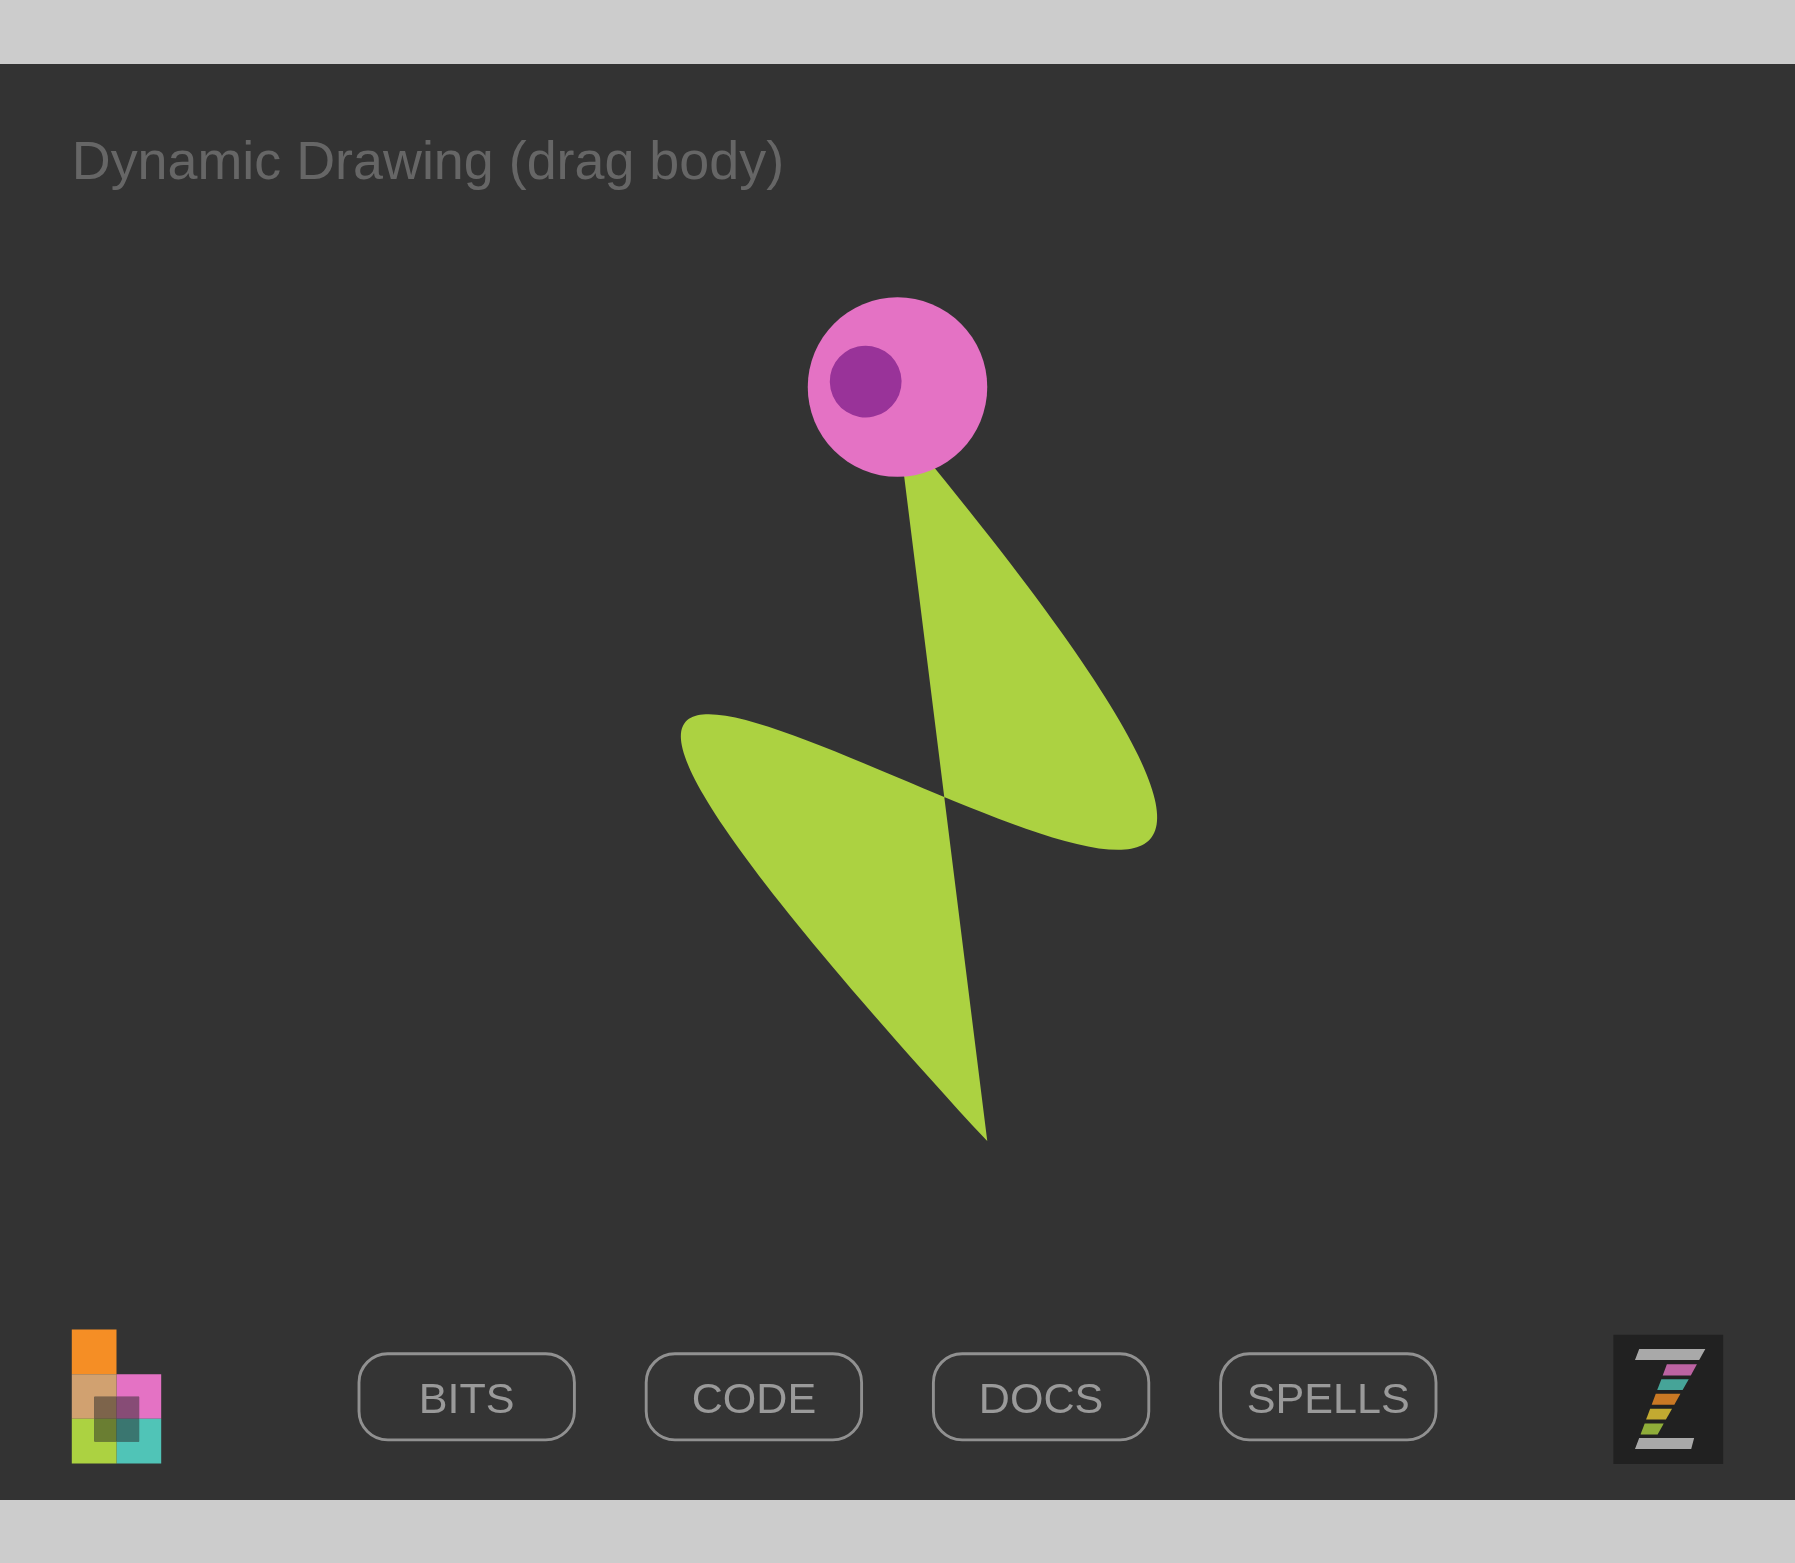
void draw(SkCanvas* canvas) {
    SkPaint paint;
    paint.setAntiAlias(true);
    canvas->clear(0xFFCCCCCC);
    paint.setColor(0xFF333333);
    canvas->drawRect(SkRect::MakeXYWH(0, 64, 1795, 1436), paint);
    canvas->drawImageRect(SkImages::DeferredFromEncodedData(SkData::MakeFromFileName("img1.png")), SkRect::MakeXYWH(71, 140, 1653, 1324), SkSamplingOptions());
}
